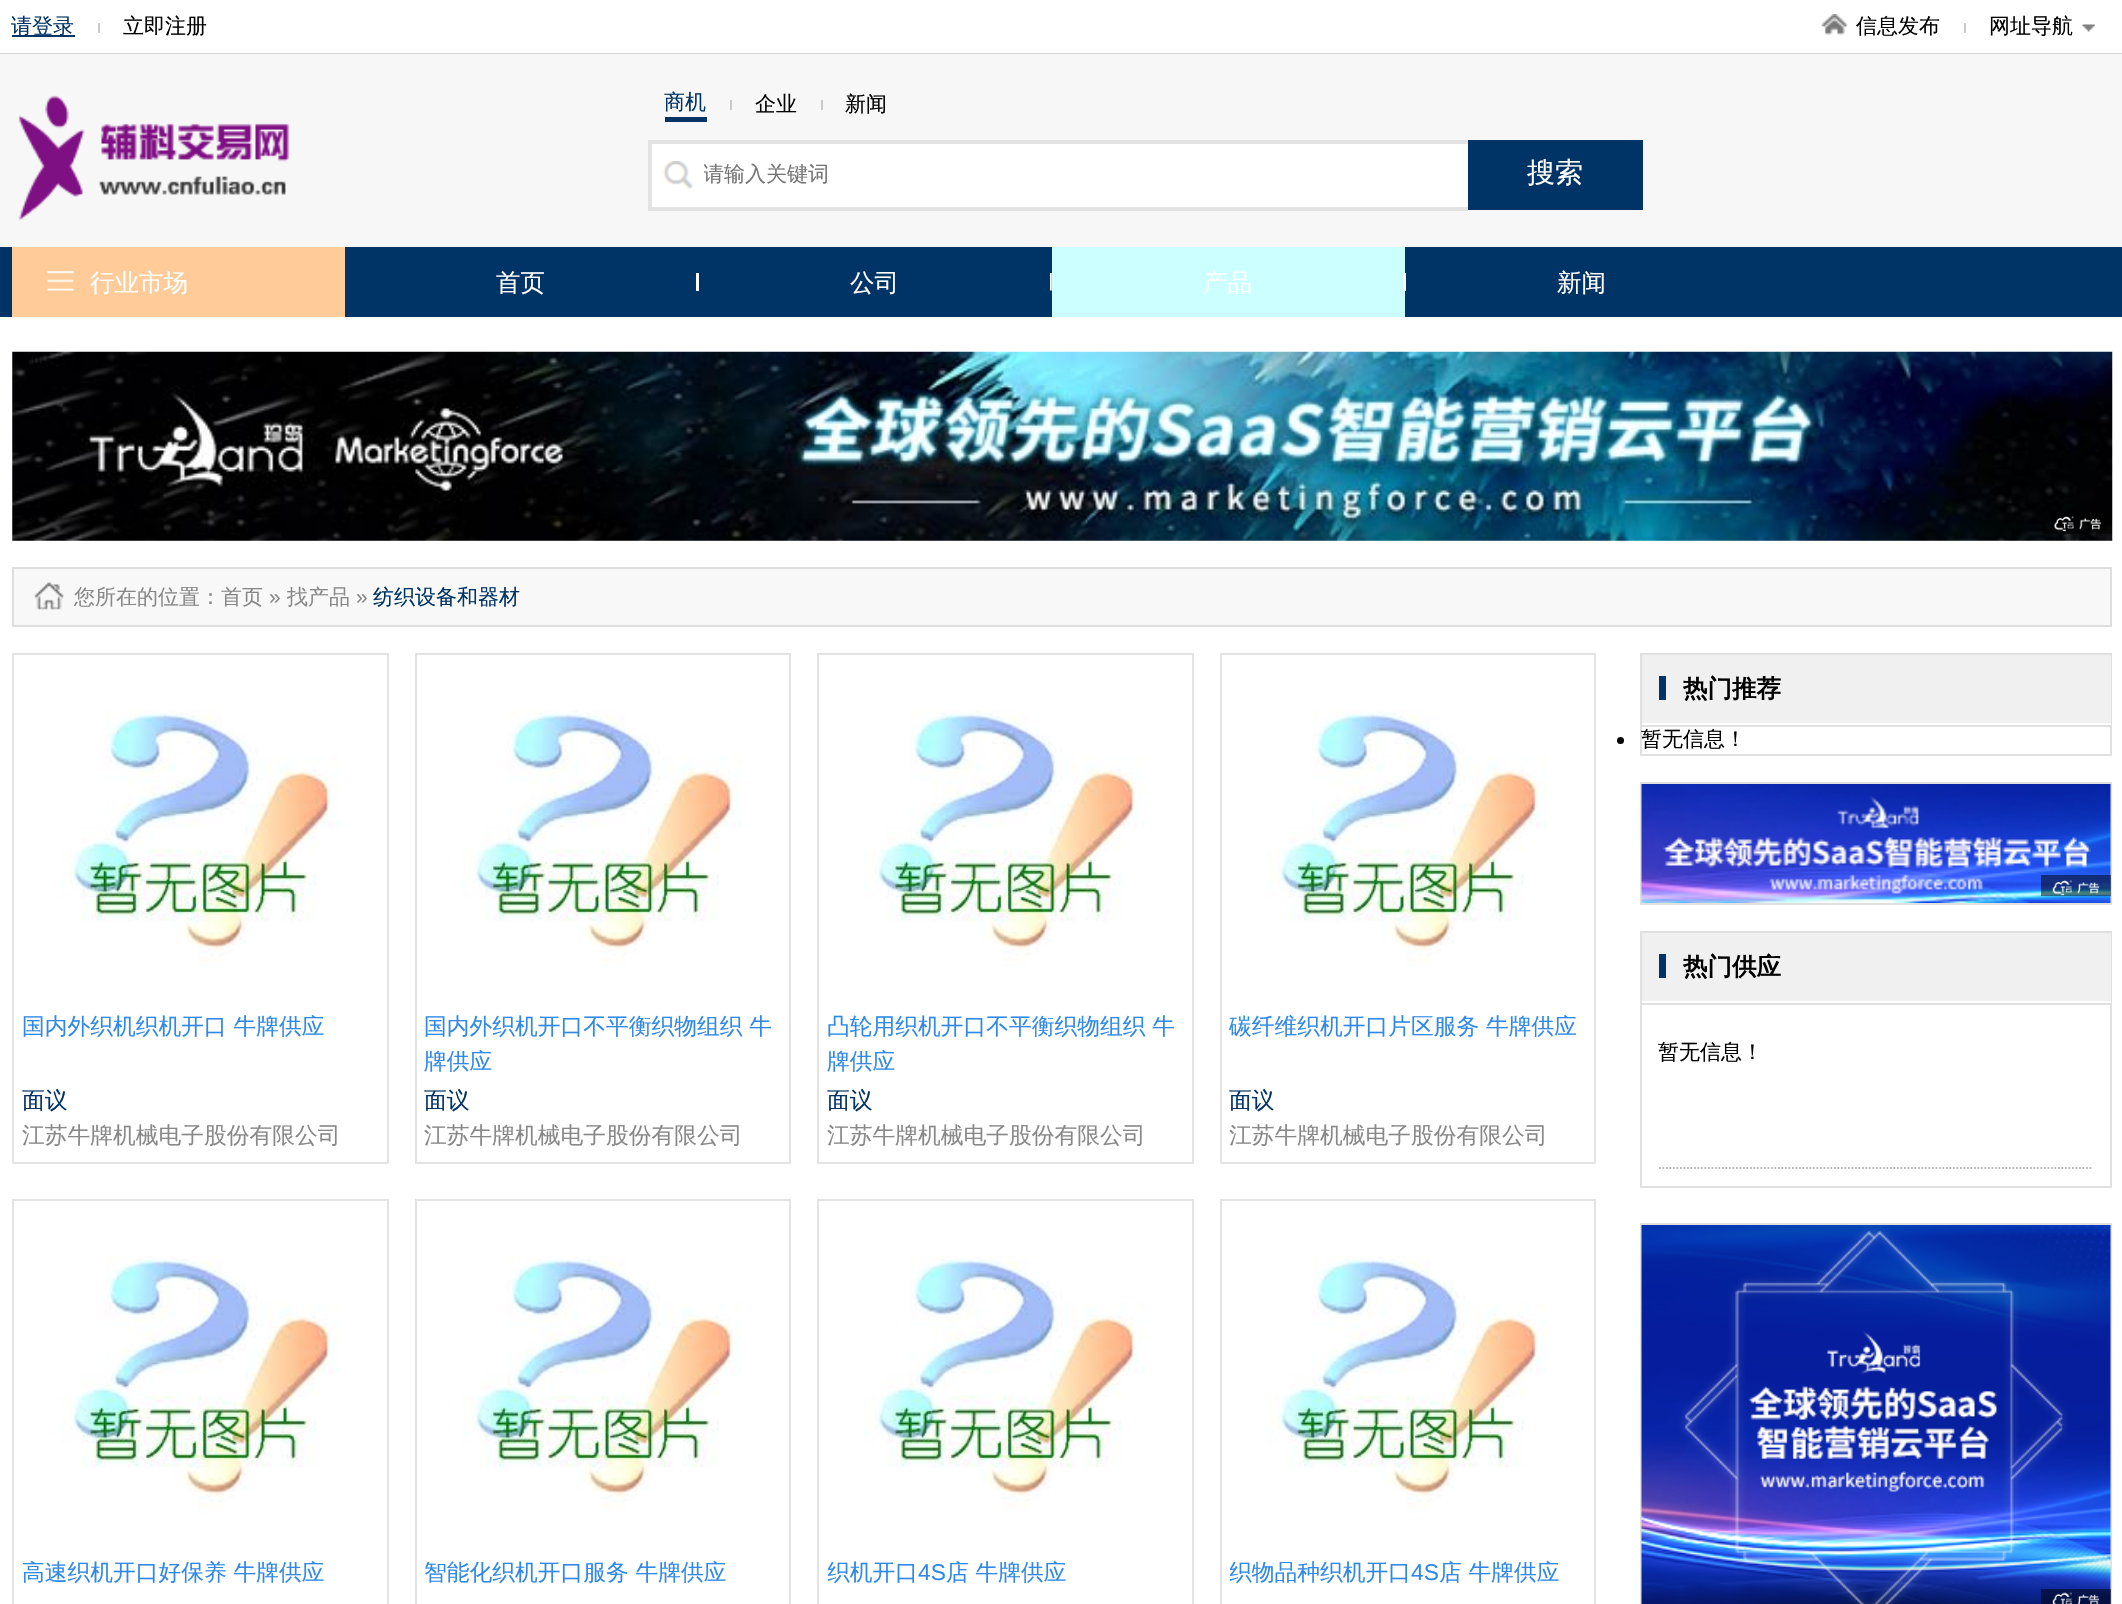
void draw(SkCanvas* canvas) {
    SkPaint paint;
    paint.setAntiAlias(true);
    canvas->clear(0xFFFFFFFF);
    paint.setColor(0xFFD4D4D4);
    canvas->drawRect(SkRect::MakeXYWH(0, 53, 2122, 1), paint);
    paint.setColor(0xFF003366);
    canvas->drawRect(SkRect::MakeXYWH(12, 35, 63, 2), paint);
    SkFont font1(fontMgr->matchFamilyStyle("WenQuanYi Zen Hei", SkFontStyle(500, SkFontStyle::kNormal_Width, SkFontStyle::kUpright_Slant)), 21);
    font1.setSubpixel(true);
    canvas->drawString("请登录", 11, 33, font1, paint);
    paint.setColor(0xFFCACACA);
    canvas->drawRect(SkRect::MakeXYWH(98, 23, 2, 10), paint);
    paint.setColor(0xFF000000);
    canvas->drawString("立即注册", 123, 33, font1, paint);
    canvas->drawImageRect(SkImages::DeferredFromEncodedData(SkData::MakeFromFileName("img1.png")), SkRect::MakeXYWH(1821, 14, 27, 21), SkSamplingOptions());
    canvas->drawString("信息发布", 1856, 33, font1, paint);
    paint.setColor(0xFFCACACA);
    canvas->drawRect(SkRect::MakeXYWH(1964, 23, 2, 10), paint);
    paint.setColor(0xFF000000);
    canvas->drawString("网址导航", 1989, 33, font1, paint);
    canvas->drawImageRect(SkImages::DeferredFromEncodedData(SkData::MakeFromFileName("img2.png")), SkRect::MakeXYWH(2082, 24, 13, 8), SkSamplingOptions());
    paint.setColor(0xFFF7F7F7);
    canvas->drawRect(SkRect::MakeXYWH(0, 54, 2122, 193), paint);
    canvas->drawImageRect(SkImages::DeferredFromEncodedData(SkData::MakeFromFileName("img3.png")), SkRect::MakeXYWH(18, 95, 272, 126), SkSamplingOptions());
    paint.setColor(0xFF003366);
    canvas->drawRect(SkRect::MakeXYWH(665, 117, 42, 5), paint);
    canvas->drawString("商机", 664, 109, font1, paint);
    paint.setColor(0xFFCACACA);
    canvas->drawRect(SkRect::MakeXYWH(730, 100, 2, 10), paint);
    paint.setColor(0xFF000000);
    canvas->drawString("企业", 755, 111, font1, paint);
    paint.setColor(0xFFCACACA);
    canvas->drawRect(SkRect::MakeXYWH(821, 100, 2, 10), paint);
    paint.setColor(0xFF000000);
    canvas->drawString("新闻", 845, 111, font1, paint);
    paint.setColor(0xFFFFFFFF);
    canvas->drawRect(SkRect::MakeXYWH(652, 144, 816, 63), paint);
    canvas->drawImageRect(SkImages::DeferredFromEncodedData(SkData::MakeFromFileName("img4.png")), SkRect::MakeXYWH(663, 161, 30, 28), SkSamplingOptions());
    paint.setColor(0xFFE3E3E3);
    canvas->drawRect(SkRect::MakeXYWH(648, 140, 820, 4), paint);
    canvas->drawRect(SkRect::MakeXYWH(648, 207, 820, 4), paint);
    canvas->drawRect(SkRect::MakeXYWH(648, 140, 4, 70), paint);
    canvas->save();
    canvas->clipRect(SkRect::MakeXYWH(704, 161, 747, 30));
    paint.setColor(0xFF757575);
    canvas->drawString("请输入关键词", 703, 181, font1, paint);
    canvas->restore();
    paint.setColor(0xFF003366);
    canvas->drawRect(SkRect::MakeXYWH(1468, 140, 175, 70), paint);
    SkFont font2(fontMgr->matchFamilyStyle("WenQuanYi Zen Hei", SkFontStyle(500, SkFontStyle::kNormal_Width, SkFontStyle::kUpright_Slant)), 28);
    font2.setSubpixel(true);
    paint.setColor(0xFFFFFFFF);
    canvas->drawString("搜索", 1527, 182, font2, paint);
    paint.setColor(0xFF003366);
    canvas->drawRect(SkRect::MakeXYWH(0, 247, 2122, 70), paint);
    paint.setColor(0xFFFFCC99);
    canvas->drawRect(SkRect::MakeXYWH(12, 247, 333, 70), paint);
    canvas->drawImageRect(SkImages::DeferredFromEncodedData(SkData::MakeFromFileName("img5.png")), SkRect::MakeXYWH(47, 271, 27, 20), SkSamplingOptions());
    SkFont font3(fontMgr->matchFamilyStyle("WenQuanYi Zen Hei", SkFontStyle(500, SkFontStyle::kNormal_Width, SkFontStyle::kUpright_Slant)), 24.5f);
    font3.setSubpixel(true);
    paint.setColor(0xFFFFFFFF);
    canvas->drawString("行业市场", 90, 291, font3, paint);
    canvas->drawRect(SkRect::MakeXYWH(696, 273, 3, 18), paint);
    canvas->drawString("首页", 496, 291, font3, paint);
    canvas->drawImageRect(SkImages::DeferredFromEncodedData(SkData::MakeFromFileName("img6.png")), SkRect::MakeXYWH(1050, 273, 2, 18), SkSamplingOptions());
    canvas->drawString("公司", 850, 291, font3, paint);
    paint.setColor(0xFFCCFFFF);
    canvas->drawRect(SkRect::MakeXYWH(1052, 247, 353, 70), paint);
    paint.setColor(0xFFFFFFFF);
    canvas->drawRect(SkRect::MakeXYWH(1403, 273, 3, 18), paint);
    canvas->drawString("产品", 1203, 291, font3, paint);
    canvas->drawString("新闻", 1557, 291, font3, paint);
    canvas->drawImageRect(SkImages::DeferredFromEncodedData(SkData::MakeFromFileName("img7.png")), SkRect::MakeXYWH(12, 351, 2101, 190), SkSamplingOptions());
    paint.setColor(0x80000000);
    canvas->drawRect(SkRect::MakeXYWH(2042, 513, 70, 21), paint);
    canvas->drawImageRect(SkImages::DeferredFromEncodedData(SkData::MakeFromFileName("img8.png")), SkRect::MakeXYWH(2054, 516, 47, 16), SkSamplingOptions());
    paint.setColor(0xFFF8F8F8);
    canvas->drawRect(SkRect::MakeXYWH(13, 568, 2098, 58), paint);
    paint.setStyle(SkPaint::kStroke_Style);
    paint.setStrokeWidth(2);
    paint.setColor(0xFFDEDEDE);
    canvas->drawRect(SkRect::MakeXYWH(13, 568, 2098, 58), paint);
    canvas->drawImageRect(SkImages::DeferredFromEncodedData(SkData::MakeFromFileName("img9.png")), SkRect::MakeXYWH(34, 582, 30, 28), SkSamplingOptions());
    paint.setStyle(SkPaint::kFill_Style);
    paint.setColor(0xFF888888);
    canvas->drawString("您所在的位置：首页", 74, 604, font1, paint);
    SkFont font4(fontMgr->matchFamilyStyle("Liberation Sans", SkFontStyle::Normal()), 21);
    font4.setSubpixel(true);
    canvas->drawString("»", 269, 604, font4, paint);
    canvas->drawString("找产品", 287, 604, font1, paint);
    canvas->drawString("»", 356, 604, font4, paint);
    paint.setColor(0xFF003366);
    canvas->drawString("纺织设备和器材", 373, 604, font1, paint);
    paint.setStyle(SkPaint::kStroke_Style);
    paint.setColor(0xFFE0E0E0);
    canvas->drawRect(SkRect::MakeXYWH(1641, 654, 470, 101), paint);
    paint.setStyle(SkPaint::kFill_Style);
    paint.setColor(0xFFF0F0F0);
    canvas->drawRect(SkRect::MakeXYWH(1642, 655, 469, 68), paint);
    paint.setColor(0xFFFFFFFF);
    canvas->drawRect(SkRect::MakeXYWH(2110, 723, 1, 2), paint);
    paint.setColor(0xFFE0E0E0);
    canvas->drawRect(SkRect::MakeXYWH(1642, 725, 469, 2), paint);
    paint.setColor(0xFF003366);
    canvas->drawRect(SkRect::MakeXYWH(1659, 676, 7, 24), paint);
    SkFont font5(fontMgr->matchFamilyStyle("WenQuanYi Zen Hei", SkFontStyle::Bold()), 24.5f);
    font5.setSubpixel(true);
    paint.setColor(0xFF000000);
    canvas->drawString("热门推荐", 1683, 697, font5, paint);
    canvas->drawCircle(1620.5f, 740.5f, 3.5f, paint);
    canvas->drawString("暂无信息！", 1641, 746, font1, paint);
    paint.setStyle(SkPaint::kStroke_Style);
    paint.setColor(0xFFE0E0E0);
    canvas->drawRect(SkRect::MakeXYWH(1641, 783, 470, 121), paint);
    canvas->drawImageRect(SkImages::DeferredFromEncodedData(SkData::MakeFromFileName("img10.png")), SkRect::MakeXYWH(1641, 784, 470, 119), SkSamplingOptions());
    paint.setStyle(SkPaint::kFill_Style);
    paint.setColor(0x80000000);
    canvas->drawRect(SkRect::MakeXYWH(2041, 875, 70, 21), paint);
    canvas->drawImageRect(SkImages::DeferredFromEncodedData(SkData::MakeFromFileName("img11.png")), SkRect::MakeXYWH(2052, 880, 48, 16), SkSamplingOptions());
    paint.setStyle(SkPaint::kStroke_Style);
    paint.setColor(0xFFE0E0E0);
    canvas->drawRect(SkRect::MakeXYWH(1641, 932, 470, 255), paint);
    paint.setStyle(SkPaint::kFill_Style);
    paint.setColor(0xFFF0F0F0);
    canvas->drawRect(SkRect::MakeXYWH(1642, 933, 469, 68), paint);
    paint.setColor(0xFFFFFFFF);
    canvas->drawRect(SkRect::MakeXYWH(2110, 1001, 1, 2), paint);
    paint.setColor(0xFFE0E0E0);
    canvas->drawRect(SkRect::MakeXYWH(1642, 1003, 469, 2), paint);
    paint.setColor(0xFF003366);
    canvas->drawRect(SkRect::MakeXYWH(1659, 954, 7, 24), paint);
    paint.setColor(0xFF000000);
    canvas->drawString("热门供应", 1683, 975, font5, paint);
    paint.setStyle(SkPaint::kStroke_Style);
    paint.setStrokeWidth(1.8f);
    paint.setColor(0xFFB6B6B6);
    paint.setPathEffect(SkDashPathEffect::Make({{1.75f, 1.75f}}, 0));
    canvas->drawPath(SkPathBuilder().moveTo(1659, 1168).lineTo(2093, 1168).detach(), paint);
    paint.setPathEffect(nullptr);
    paint.setStyle(SkPaint::kFill_Style);
    paint.setColor(0xFF000000);
    canvas->drawString("暂无信息！", 1658, 1059, font1, paint);
    paint.setStyle(SkPaint::kStroke_Style);
    paint.setStrokeWidth(2);
    paint.setColor(0xFFE0E0E0);
    canvas->drawRect(SkRect::MakeXYWH(1641, 1224, 470, 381), paint);
    canvas->drawImageRect(SkImages::DeferredFromEncodedData(SkData::MakeFromFileName("img12.png")), SkRect::MakeXYWH(1641, 1225, 470, 379), SkSamplingOptions());
    paint.setStyle(SkPaint::kFill_Style);
    paint.setColor(0x80000000);
    canvas->drawRect(SkRect::MakeXYWH(2041, 1589, 70, 15), paint);
    canvas->drawImageRect(SkImages::DeferredFromEncodedData(SkData::MakeFromFileName("img13.png")), SkRect::MakeXYWH(2052, 1592, 48, 12), SkSamplingOptions());
    paint.setStyle(SkPaint::kStroke_Style);
    paint.setColor(0xFFE3E3E3);
    canvas->drawRect(SkRect::MakeXYWH(13, 654, 375, 509), paint);
    canvas->drawImageRect(SkImages::DeferredFromEncodedData(SkData::MakeFromFileName("img14.png")), SkRect::MakeXYWH(59, 710, 281, 257), SkSamplingOptions());
    SkFont font6(fontMgr->matchFamilyStyle("WenQuanYi Zen Hei", SkFontStyle(500, SkFontStyle::kNormal_Width, SkFontStyle::kUpright_Slant)), 22.75f);
    font6.setSubpixel(true);
    paint.setStyle(SkPaint::kFill_Style);
    paint.setColor(0xFF3089E7);
    canvas->drawString("国内外织机织机开口 牛牌供应", 22, 1034, font6, paint);
    paint.setColor(0xFF003366);
    canvas->drawString("面议", 22, 1108, font6, paint);
    paint.setColor(0xFF888888);
    canvas->drawString("江苏牛牌机械电子股份有限公司", 22, 1143, font6, paint);
    paint.setStyle(SkPaint::kStroke_Style);
    paint.setColor(0xFFE3E3E3);
    canvas->drawRect(SkRect::MakeXYWH(416, 654, 374, 509), paint);
    canvas->drawImageRect(SkImages::DeferredFromEncodedData(SkData::MakeFromFileName("img15.png")), SkRect::MakeXYWH(461, 710, 281, 257), SkSamplingOptions());
    paint.setStyle(SkPaint::kFill_Style);
    paint.setColor(0xFF3089E7);
    canvas->drawString("国内外织机开口不平衡织物组织 牛", 424, 1034, font6, paint);
    canvas->drawString("牌供应", 424, 1069, font6, paint);
    paint.setColor(0xFF003366);
    canvas->drawString("面议", 424, 1108, font6, paint);
    paint.setColor(0xFF888888);
    canvas->drawString("江苏牛牌机械电子股份有限公司", 424, 1143, font6, paint);
    paint.setStyle(SkPaint::kStroke_Style);
    paint.setColor(0xFFE3E3E3);
    canvas->drawRect(SkRect::MakeXYWH(818, 654, 375, 509), paint);
    canvas->drawImageRect(SkImages::DeferredFromEncodedData(SkData::MakeFromFileName("img16.png")), SkRect::MakeXYWH(864, 710, 281, 257), SkSamplingOptions());
    paint.setStyle(SkPaint::kFill_Style);
    paint.setColor(0xFF3089E7);
    canvas->drawString("凸轮用织机开口不平衡织物组织 牛", 827, 1034, font6, paint);
    canvas->drawString("牌供应", 827, 1069, font6, paint);
    paint.setColor(0xFF003366);
    canvas->drawString("面议", 827, 1108, font6, paint);
    paint.setColor(0xFF888888);
    canvas->drawString("江苏牛牌机械电子股份有限公司", 827, 1143, font6, paint);
    paint.setStyle(SkPaint::kStroke_Style);
    paint.setColor(0xFFE3E3E3);
    canvas->drawRect(SkRect::MakeXYWH(1221, 654, 374, 509), paint);
    canvas->drawImageRect(SkImages::DeferredFromEncodedData(SkData::MakeFromFileName("img15.png")), SkRect::MakeXYWH(1266, 710, 281, 257), SkSamplingOptions());
    paint.setStyle(SkPaint::kFill_Style);
    paint.setColor(0xFF3089E7);
    canvas->drawString("碳纤维织机开口片区服务 牛牌供应", 1229, 1034, font6, paint);
    paint.setColor(0xFF003366);
    canvas->drawString("面议", 1229, 1108, font6, paint);
    paint.setColor(0xFF888888);
    canvas->drawString("江苏牛牌机械电子股份有限公司", 1229, 1143, font6, paint);
    paint.setStyle(SkPaint::kStroke_Style);
    paint.setColor(0xFFE3E3E3);
    canvas->drawRect(SkRect::MakeXYWH(13, 1200, 375, 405), paint);
    canvas->drawImageRect(SkImages::DeferredFromEncodedData(SkData::MakeFromFileName("img14.png")), SkRect::MakeXYWH(59, 1256, 281, 257), SkSamplingOptions());
    paint.setStyle(SkPaint::kFill_Style);
    paint.setColor(0xFF3089E7);
    canvas->drawString("高速织机开口好保养 牛牌供应", 22, 1580, font6, paint);
    paint.setStyle(SkPaint::kStroke_Style);
    paint.setColor(0xFFE3E3E3);
    canvas->drawRect(SkRect::MakeXYWH(416, 1200, 374, 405), paint);
    canvas->drawImageRect(SkImages::DeferredFromEncodedData(SkData::MakeFromFileName("img15.png")), SkRect::MakeXYWH(461, 1256, 281, 257), SkSamplingOptions());
    paint.setStyle(SkPaint::kFill_Style);
    paint.setColor(0xFF3089E7);
    canvas->drawString("智能化织机开口服务 牛牌供应", 424, 1580, font6, paint);
    paint.setStyle(SkPaint::kStroke_Style);
    paint.setColor(0xFFE3E3E3);
    canvas->drawRect(SkRect::MakeXYWH(818, 1200, 375, 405), paint);
    canvas->drawImageRect(SkImages::DeferredFromEncodedData(SkData::MakeFromFileName("img16.png")), SkRect::MakeXYWH(864, 1256, 281, 257), SkSamplingOptions());
    canvas->save();
    canvas->clipRect(SkRect::MakeXYWH(828, 1556, 355, 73));
    paint.setStyle(SkPaint::kFill_Style);
    paint.setColor(0xFF3089E7);
    canvas->drawString("织机开口", 827, 1580, font6, paint);
    canvas->restore();
    SkFont font7(fontMgr->matchFamilyStyle("Liberation Sans", SkFontStyle::Normal()), 22.75f);
    font7.setSubpixel(true);
    canvas->drawString("4S", 918, 1580, font7, paint);
    canvas->drawString("店 牛牌供应", 946, 1580, font6, paint);
    paint.setStyle(SkPaint::kStroke_Style);
    paint.setColor(0xFFE3E3E3);
    canvas->drawRect(SkRect::MakeXYWH(1221, 1200, 374, 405), paint);
    canvas->drawImageRect(SkImages::DeferredFromEncodedData(SkData::MakeFromFileName("img15.png")), SkRect::MakeXYWH(1266, 1256, 281, 257), SkSamplingOptions());
    canvas->save();
    canvas->clipRect(SkRect::MakeXYWH(1230, 1556, 356, 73));
    paint.setStyle(SkPaint::kFill_Style);
    paint.setColor(0xFF3089E7);
    canvas->drawString("织物品种织机开口", 1229, 1580, font6, paint);
    canvas->restore();
    canvas->drawString("4S", 1411, 1580, font7, paint);
    canvas->drawString("店 牛牌供应", 1439, 1580, font6, paint);
}
